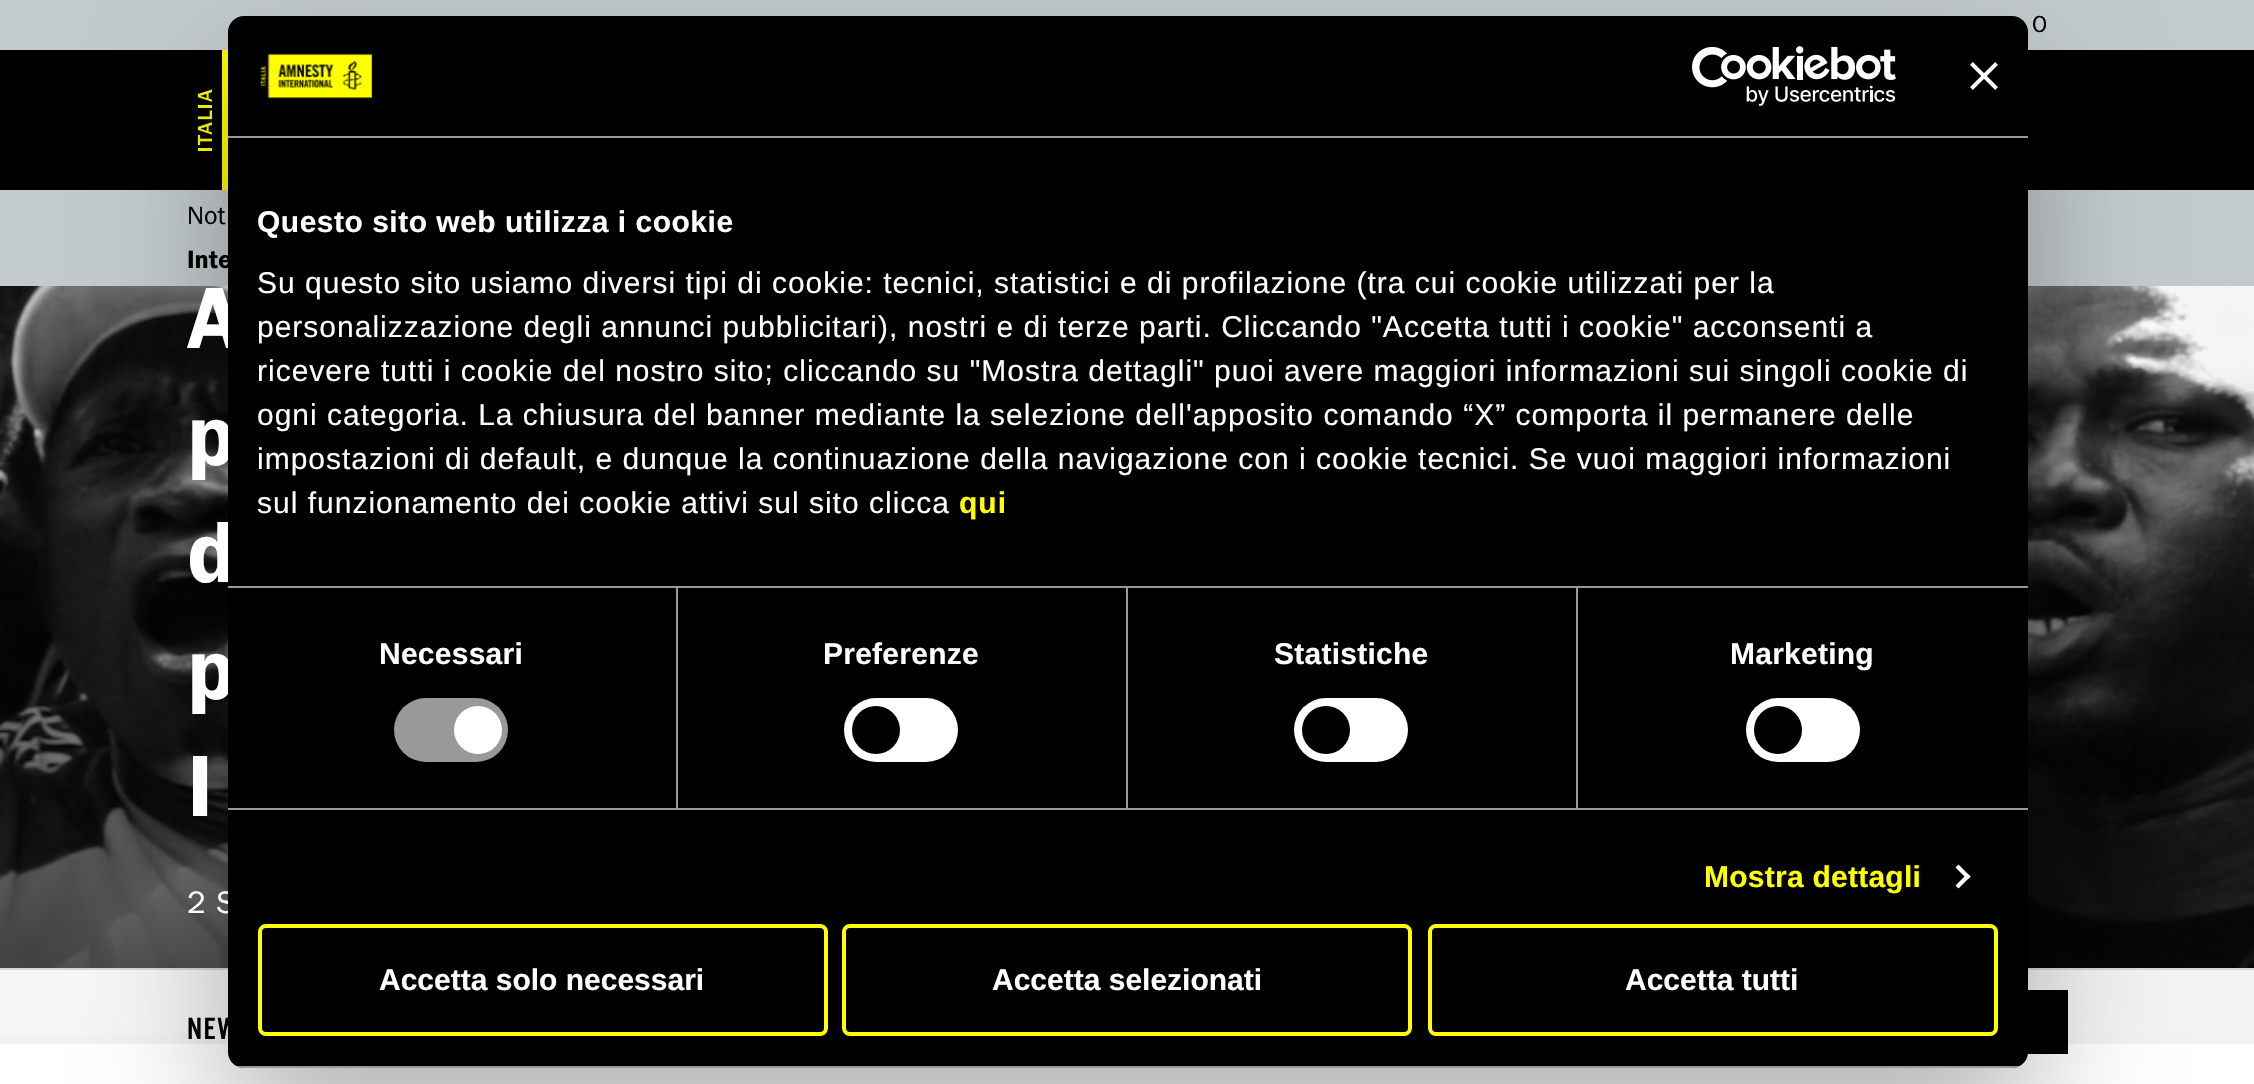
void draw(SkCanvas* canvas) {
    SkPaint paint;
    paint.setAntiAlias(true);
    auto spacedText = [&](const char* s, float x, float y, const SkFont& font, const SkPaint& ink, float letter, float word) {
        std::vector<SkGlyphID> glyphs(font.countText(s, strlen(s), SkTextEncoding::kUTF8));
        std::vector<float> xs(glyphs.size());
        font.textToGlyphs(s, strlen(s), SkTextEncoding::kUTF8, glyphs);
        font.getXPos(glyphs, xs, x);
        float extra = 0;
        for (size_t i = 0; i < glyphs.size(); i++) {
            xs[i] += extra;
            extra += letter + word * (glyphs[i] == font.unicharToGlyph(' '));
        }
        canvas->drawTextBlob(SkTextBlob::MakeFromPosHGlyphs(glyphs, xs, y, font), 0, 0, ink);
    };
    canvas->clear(0xFFFFFFFF);
    paint.setColor(0xFFC3CACD);
    canvas->drawRect(SkRect::MakeXYWH(0, 0, 2254, 50), paint);
    SkFont font1(fontMgr->matchFamilyStyle("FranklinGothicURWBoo", SkFontStyle::Normal()), 24);
    font1.setSubpixel(true);
    paint.setColor(0xFF000000);
    canvas->drawString("O", 2032, 32, font1, paint);
    canvas->drawRect(SkRect::MakeXYWH(0, 50, 2254, 140), paint);
    canvas->drawImageRect(SkImages::DeferredFromEncodedData(SkData::MakeFromFileName("img1.png")), SkRect::MakeXYWH(197, 50, 31, 140), SkSamplingOptions());
    paint.setColor(0xFFC3CACD);
    canvas->drawRect(SkRect::MakeXYWH(0, 190, 2254, 96), paint);
    SkFont font2(fontMgr->matchFamilyStyle("FranklinGothicURWBoo", SkFontStyle::Normal()), 26);
    font2.setSubpixel(true);
    paint.setColor(0xFF000000);
    canvas->drawString("Not", 187, 224, font2, paint);
    SkFont font3(fontMgr->matchFamilyStyle("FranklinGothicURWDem", SkFontStyle::Normal()), 26);
    font3.setSubpixel(true);
    canvas->drawString("Inte", 187, 268, font3, paint);
    canvas->drawImageRect(SkImages::DeferredFromEncodedData(SkData::MakeFromFileName("img5.png")), SkRect::MakeXYWH(0, 286, 2254, 748), SkSamplingOptions());
    canvas->drawRect(SkRect::MakeXYWH(0, 1034, 2254, 10), paint);
    paint.setColor(0xF2FFFFFF);
    canvas->drawRect(SkRect::MakeXYWH(0, 970, 2254, 74), paint);
    paint.setColor(0xFFD1D8DB);
    canvas->drawRect(SkRect::MakeXYWH(0, 968, 2254, 2), paint);
    paint.setColor(0xFF000000);
    canvas->drawRect(SkRect::MakeXYWH(2027, 990, 41, 64), paint);
    paint.setColor(0x4D000000);
    paint.setMaskFilter(SkMaskFilter::MakeBlur(kNormal_SkBlurStyle, 68));
    canvas->drawRoundRect(SkRect::MakeXYWH(228, 80, 1800, 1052), 16, 16, paint);
    paint.setMaskFilter(nullptr);
    SkFont font4(fontMgr->matchFamilyStyle("FranklinGothicURWDem", SkFontStyle::Normal()), 90);
    font4.setSubpixel(true);
    paint.setColor(0xFFFFFFFF);
    spacedText("A", 187, 348, font4, paint, 1, 0);
    spacedText("p", 187, 465, font4, paint, 1, 0);
    spacedText("d", 187, 582, font4, paint, 1, 0);
    spacedText("p", 187, 699, font4, paint, 1, 0);
    SkFont font5(fontMgr->matchFamilyStyle("FranklinGothicURWBoo", SkFontStyle::Normal()), 32);
    font5.setSubpixel(true);
    spacedText("2 S", 187, 913, font5, paint, 1.5f, 0);
    paint.setColor(0xFF000000);
    canvas->drawRoundRect(SkRect::MakeXYWH(228, 16, 1800, 1052), 16, 16, paint);
    paint.setColor(0xFF999999);
    canvas->drawRect(SkRect::MakeXYWH(228, 136, 1800, 2), paint);
    canvas->drawImageRect(SkImages::DeferredFromEncodedData(SkData::MakeFromFileName("img2.png")), SkRect::MakeXYWH(260, 53, 112, 46), SkSamplingOptions());
    canvas->drawImageRect(SkImages::DeferredFromEncodedData(SkData::MakeFromFileName("img3.png")), SkRect::MakeXYWH(1692, 46, 204, 60), SkSamplingOptions());
    canvas->drawImageRect(SkImages::DeferredFromEncodedData(SkData::MakeFromFileName("img4.png")), SkRect::MakeXYWH(1970, 62, 28, 28), SkSamplingOptions());
    canvas->drawRect(SkRect::MakeXYWH(228, 586, 1800, 2), paint);
    SkFont font6(fontMgr->matchFamilyStyle("Liberation Sans", SkFontStyle::Bold()), 30);
    font6.setSubpixel(true);
    paint.setColor(0xFFFFFFFF);
    spacedText("Questo sito web utilizza i cookie", 257, 232, font6, paint, 0.5f, 0);
    SkFont font7(fontMgr->matchFamilyStyle("Liberation Sans", SkFontStyle::Normal()), 30);
    font7.setSubpixel(true);
    spacedText("Su questo sito usiamo diversi tipi di cookie: tecnici, statistici e di profilazione (tra cui cookie utilizzati per la", 257, 293, font7, paint, 1, 0);
    spacedText("personalizzazione degli annunci pubblicitari), nostri e di terze parti. Cliccando \"Accetta tutti i cookie\" acconsenti a", 257, 337, font7, paint, 1, 0);
    spacedText("ricevere tutti i cookie del nostro sito; cliccando su \"Mostra dettagli\" puoi avere maggiori informazioni sui singoli cookie di", 257, 381, font7, paint, 1, 0);
    spacedText("ogni categoria. La chiusura del banner mediante la selezione dell'apposito comando “X” comporta il permanere delle", 257, 425, font7, paint, 1, 0);
    spacedText("impostazioni di default, e dunque la continuazione della navigazione con i cookie tecnici. Se vuoi maggiori informazioni", 257, 469, font7, paint, 1, 0);
    spacedText("sul funzionamento dei cookie attivi sul sito clicca", 257, 513, font7, paint, 1, 0);
    paint.setColor(0xFFFFFF00);
    spacedText("qui", 959, 513, font6, paint, 1, 0);
    paint.setColor(0xFF999999);
    canvas->drawRect(SkRect::MakeXYWH(228, 808, 1800, 2), paint);
    canvas->drawRect(SkRect::MakeXYWH(676, 588, 2, 220), paint);
    paint.setColor(0xFFFFFFFF);
    spacedText("Necessari", 379, 664, font6, paint, 0.25f, 0);
    paint.setColor(0xFF999999);
    canvas->drawRoundRect(SkRect::MakeXYWH(394, 698, 114, 64), 32, 32, paint);
    paint.setColor(0xFFFFFFFF);
    canvas->drawCircle(478, 730, 24, paint);
    paint.setColor(0xFF999999);
    canvas->drawRect(SkRect::MakeXYWH(1126, 588, 2, 220), paint);
    paint.setColor(0xFFFFFFFF);
    spacedText("Preferenze", 823, 664, font6, paint, 0.25f, 0);
    canvas->drawRoundRect(SkRect::MakeXYWH(844, 698, 114, 64), 32, 32, paint);
    paint.setColor(0xFF000000);
    canvas->drawCircle(876, 730, 24, paint);
    paint.setColor(0xFF999999);
    canvas->drawRect(SkRect::MakeXYWH(1576, 588, 2, 220), paint);
    paint.setColor(0xFFFFFFFF);
    spacedText("Statistiche", 1274, 664, font6, paint, 0.25f, 0);
    canvas->drawRoundRect(SkRect::MakeXYWH(1294, 698, 114, 64), 32, 32, paint);
    paint.setColor(0xFF000000);
    canvas->drawCircle(1326, 730, 24, paint);
    paint.setColor(0xFFFFFFFF);
    spacedText("Marketing", 1730, 664, font6, paint, 0.25f, 0);
    canvas->drawRoundRect(SkRect::MakeXYWH(1746, 698, 114, 64), 32, 32, paint);
    paint.setColor(0xFF000000);
    canvas->drawCircle(1778, 730, 24, paint);
    paint.setColor(0xFFFFFF00);
    spacedText("Mostra dettagli", 1704, 887, font6, paint, 0.25f, 0);
    paint.setColor(0xFFFFFFFF);
    canvas->drawPath(SkPathBuilder().moveTo(1958.5f, 864.5f).lineTo(1970.5f, 876.5f).lineTo(1967.5f, 879.5f).lineTo(1955.5f, 867.5f).close().detach(), paint);
    canvas->drawPath(SkPathBuilder().moveTo(1967.5f, 873.5f).lineTo(1970.5f, 876.5f).lineTo(1958.5f, 888.5f).lineTo(1955.5f, 885.5f).close().detach(), paint);
    canvas->save();
    canvas->clipPath(SkPathBuilder().moveTo(244, 16).lineTo(2012, 16).cubicTo(2021, 16, 2028, 23, 2028, 32).lineTo(2028, 1052).cubicTo(2028, 1061, 2021, 1068, 2012, 1068).lineTo(244, 1068).cubicTo(235, 1068, 228, 1061, 228, 1052).lineTo(228, 32).cubicTo(228, 23, 235, 16, 244, 16).close().detach(), true);
    paint.setColor(0xFF999999);
    canvas->drawRect(SkRect::MakeXYWH(228, 1066, 1800, 2), paint);
    canvas->restore();
    paint.setStyle(SkPaint::kStroke_Style);
    paint.setStrokeWidth(4);
    paint.setColor(0xFFFFFF00);
    canvas->drawRoundRect(SkRect::MakeXYWH(260, 926, 566, 108), 6, 6, paint);
    paint.setStyle(SkPaint::kFill_Style);
    paint.setColor(0xFFFFFFFF);
    canvas->drawString("Accetta solo necessari", 379, 990, font6, paint);
    paint.setStyle(SkPaint::kStroke_Style);
    paint.setColor(0xFFFFFF00);
    canvas->drawRoundRect(SkRect::MakeXYWH(844, 926, 566, 108), 6, 6, paint);
    paint.setStyle(SkPaint::kFill_Style);
    paint.setColor(0xFFFFFFFF);
    canvas->drawString("Accetta selezionati", 992, 990, font6, paint);
    paint.setStyle(SkPaint::kStroke_Style);
    paint.setColor(0xFFFFFF00);
    canvas->drawRoundRect(SkRect::MakeXYWH(1430, 926, 566, 108), 6, 6, paint);
    paint.setStyle(SkPaint::kFill_Style);
    paint.setColor(0xFFFFFFFF);
    canvas->drawString("Accetta tutti", 1625, 990, font6, paint);
    spacedText("I", 187, 816, font4, paint, 1, 0);
    SkFont font8(fontMgr->matchFamilyStyle("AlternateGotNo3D", SkFontStyle::Normal()), 32);
    font8.setSubpixel(true);
    paint.setColor(0xFF000000);
    spacedText("NEW", 187, 1039, font8, paint, 1.5f, 0);
}
